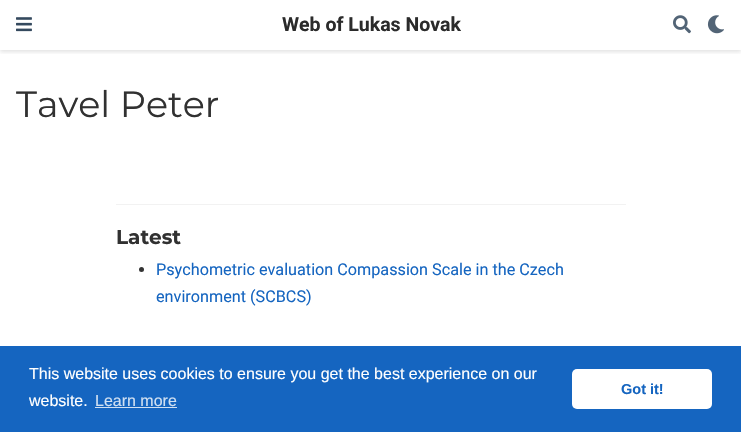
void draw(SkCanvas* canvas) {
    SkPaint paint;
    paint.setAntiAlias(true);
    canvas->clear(0xFFFFFFFF);
    canvas->save();
    canvas->clipRect(SkRect::MakeXYWH(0, 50, 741, 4));
    paint.setColor(0x1C000000);
    paint.setMaskFilter(SkMaskFilter::MakeBlur(kNormal_SkBlurStyle, 2));
    canvas->drawRect(SkRect::MakeXYWH(0, 2, 741, 50), paint);
    paint.setMaskFilter(nullptr);
    canvas->restore();
    canvas->drawImageRect(SkImages::DeferredFromEncodedData(SkData::MakeFromFileName("img1.png")), SkRect::MakeXYWH(16, 17, 16, 15), SkSamplingOptions());
    SkFont font1(fontMgr->matchFamilyStyle("Roboto", SkFontStyle::Bold()), 19.5f);
    font1.setSubpixel(true);
    paint.setColor(0xFF2B2B2B);
    canvas->drawString("Web of Lukas Novak", 282, 31, font1, paint);
    canvas->drawImageRect(SkImages::DeferredFromEncodedData(SkData::MakeFromFileName("img2.png")), SkRect::MakeXYWH(673, 15, 18, 19), SkSamplingOptions());
    canvas->drawImageRect(SkImages::DeferredFromEncodedData(SkData::MakeFromFileName("img3.png")), SkRect::MakeXYWH(707, 15, 17, 19), SkSamplingOptions());
    SkFont font2(fontMgr->matchFamilyStyle("Montserrat", SkFontStyle::Normal()), 36.5f);
    font2.setSubpixel(true);
    paint.setColor(0xFF313131);
    canvas->drawString("Tavel Peter", 16, 117, font2, paint);
    paint.setColor(0xFFF2F2F2);
    canvas->drawRect(SkRect::MakeXYWH(116, 204, 510, 1), paint);
    SkFont font3(fontMgr->matchFamilyStyle("Montserrat", SkFontStyle::Bold()), 20);
    font3.setSubpixel(true);
    paint.setColor(0xFF313131);
    canvas->drawString("Latest", 116, 244, font3, paint);
    paint.setColor(0xFF333333);
    canvas->drawCircle(141.5f, 269.5f, 2.5f, paint);
    SkFont font4(fontMgr->matchFamilyStyle("Roboto", SkFontStyle::Normal()), 16.2f);
    font4.setSubpixel(true);
    paint.setColor(0xFF1565C0);
    canvas->drawString("Psychometric evaluation Compassion Scale in the Czech", 156, 275, font4, paint);
    canvas->drawString("environment (SCBCS)", 156, 302, font4, paint);
    canvas->drawRect(SkRect::MakeXYWH(0, 346, 741, 86), paint);
    SkFont font5(fontMgr->matchFamilyStyle("Liberation Sans", SkFontStyle::Normal()), 16);
    font5.setSubpixel(true);
    paint.setColor(0xFFFFFFFF);
    canvas->drawString("This website uses cookies to ensure you get the best experience on our", 29, 379, font5, paint);
    canvas->drawString("website.", 29, 406, font5, paint);
    paint.setColor(0xFFD0E0F2);
    canvas->drawString("Learn more", 95, 406, font5, paint);
    canvas->drawRect(SkRect::MakeXYWH(95, 407, 82, 1), paint);
    paint.setColor(0xFFFFFFFF);
    canvas->drawRoundRect(SkRect::MakeXYWH(572, 369, 140, 40), 5, 5, paint);
    SkFont font6(fontMgr->matchFamilyStyle("Liberation Sans", SkFontStyle::Bold()), 14.5f);
    font6.setSubpixel(true);
    paint.setColor(0xFF1565C0);
    canvas->drawString("Got it!", 621, 394, font6, paint);
}
